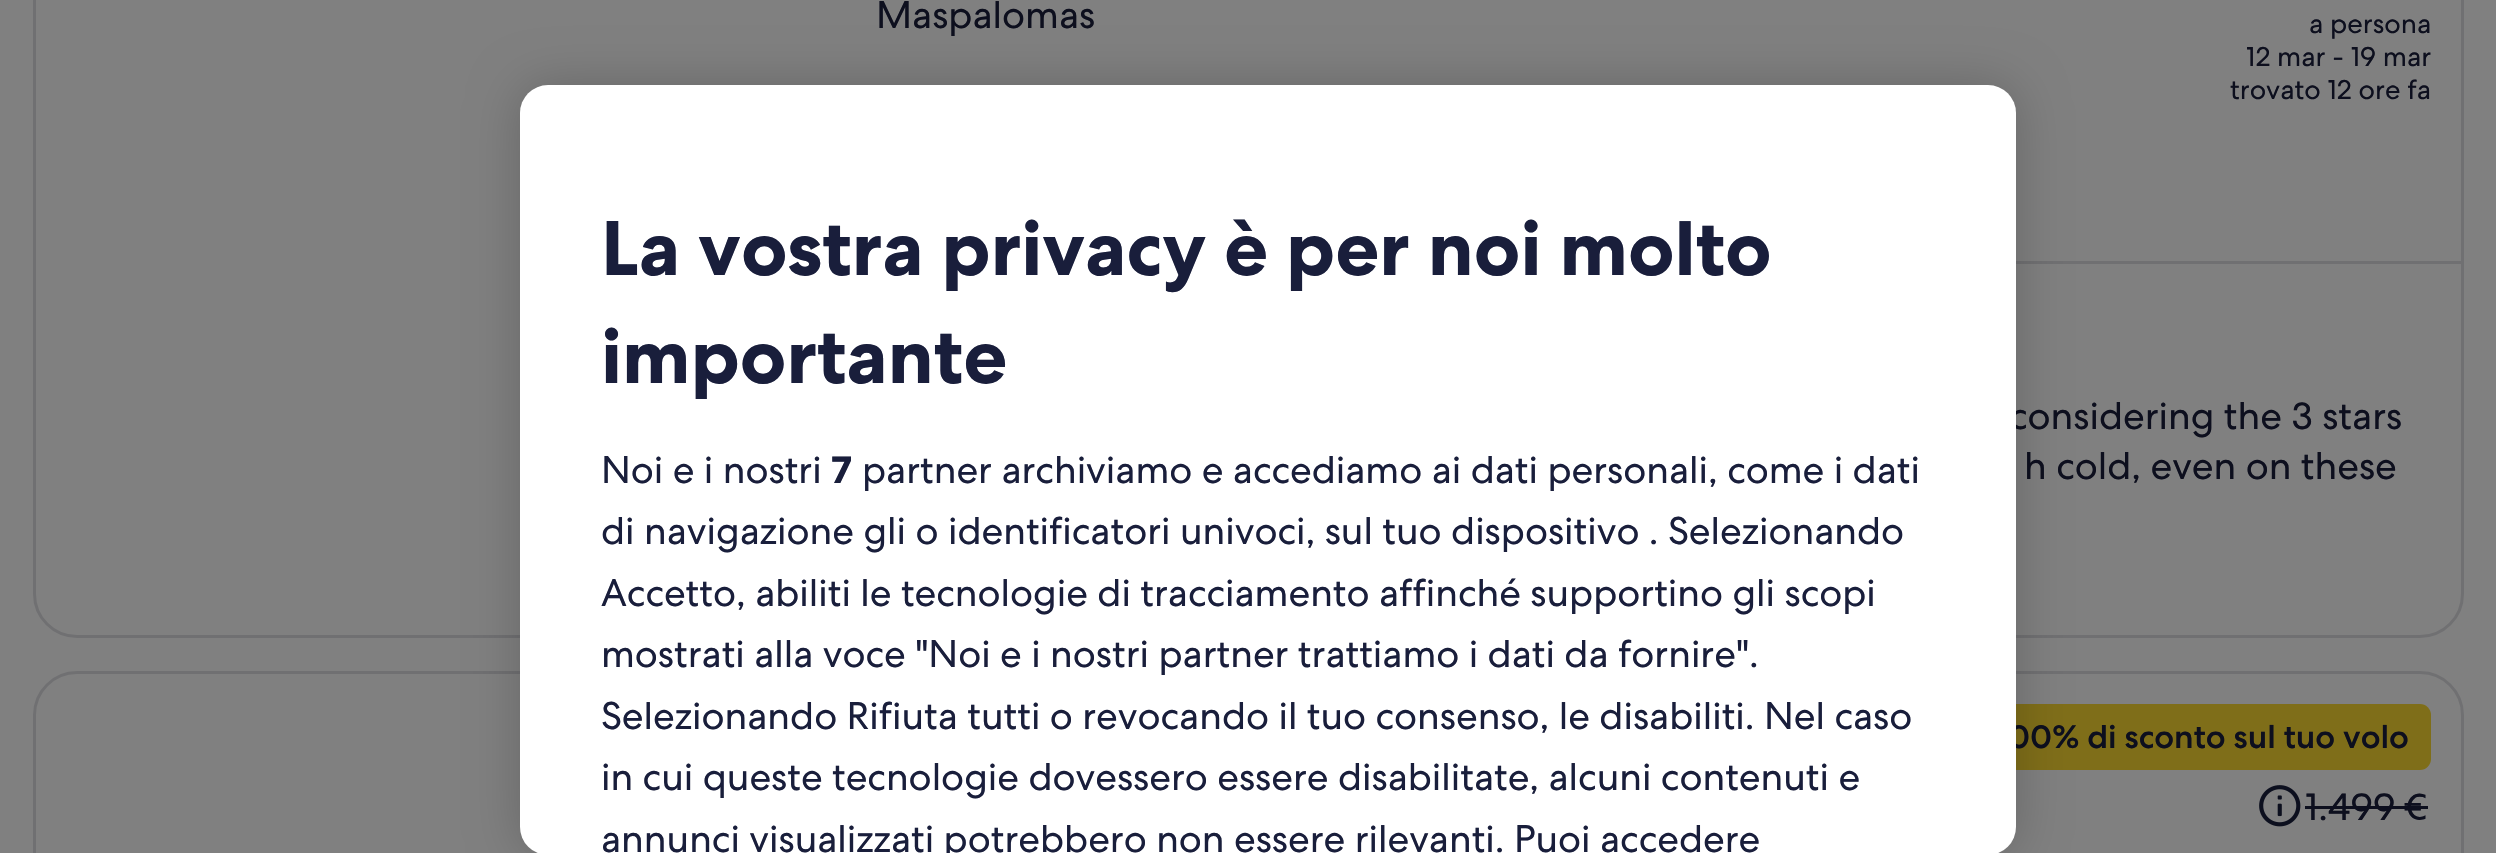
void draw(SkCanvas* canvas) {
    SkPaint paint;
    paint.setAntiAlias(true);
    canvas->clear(0xFF808080);
    paint.setColor(0xFF707072);
    canvas->drawRect(SkRect::MakeXYWH(2016, 261, 448, 3), paint);
    paint.setStyle(SkPaint::kStroke_Style);
    paint.setStrokeWidth(3);
    canvas->drawRoundRect(SkRect::MakeXYWH(34.5f, -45.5f, 2428, 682), 42.5f, 42.5f, paint);
    SkFont font1(fontMgr->matchFamilyStyle("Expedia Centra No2", SkFontStyle::Normal()), 38.5f);
    font1.setSubpixel(true);
    paint.setStyle(SkPaint::kFill_Style);
    paint.setColor(0xFF0D0F1E);
    canvas->drawString("Maspalomas", 876, 28, font1, paint);
    SkFont font2(fontMgr->matchFamilyStyle("Expedia Centra No2", SkFontStyle::Normal()), 27.5f);
    font2.setSubpixel(true);
    canvas->drawString("a persona", 2309, 33, font2, paint);
    canvas->drawString("12 mar - 19 mar", 2246, 66, font2, paint);
    canvas->drawString("trovato 12 ore fa", 2230, 99, font2, paint);
    canvas->drawString("considering the 3 stars", 2009, 429, font1, paint);
    canvas->drawString("h cold, even on these", 2024, 479, font1, paint);
    paint.setColor(0xFF7F6E19);
    canvas->drawRoundRect(SkRect::MakeXYWH(1975, 704, 456, 66), 11, 11, paint);
    paint.setStyle(SkPaint::kStroke_Style);
    paint.setColor(0xFF707072);
    canvas->drawRoundRect(SkRect::MakeXYWH(34.5f, 672.5f, 2428, 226), 42.5f, 42.5f, paint);
    SkFont font3(fontMgr->matchFamilyStyle("Expedia Centra No2", SkFontStyle(500, SkFontStyle::kNormal_Width, SkFontStyle::kUpright_Slant)), 33);
    font3.setSubpixel(true);
    paint.setStyle(SkPaint::kFill_Style);
    paint.setColor(0xFF0D0F1E);
    canvas->drawString("00% di sconto sul tuo volo", 2008, 748, font3, paint);
    canvas->drawImageRect(SkImages::DeferredFromEncodedData(SkData::MakeFromFileName("img1.png")), SkRect::MakeXYWH(2259, 785, 42, 42), SkSamplingOptions());
    canvas->drawString("1.499", 2305, 820, font1, paint);
    canvas->drawRect(SkRect::MakeXYWH(2305, 806, 123, 3), paint);
    canvas->drawString("€", 2404, 820, font1, paint);
    paint.setColor(0x33000000);
    paint.setMaskFilter(SkMaskFilter::MakeBlur(kNormal_SkBlurStyle, 25));
    canvas->drawRoundRect(SkRect::MakeXYWH(520, 85, 1496, 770), 28, 28, paint);
    paint.setMaskFilter(nullptr);
    paint.setColor(0xFFFFFFFF);
    canvas->drawRoundRect(SkRect::MakeXYWH(520, 85, 1496, 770), 28, 28, paint);
    SkFont font4(fontMgr->matchFamilyStyle("Expedia Centra No2", SkFontStyle::Bold()), 77);
    font4.setSubpixel(true);
    paint.setColor(0xFF191E3B);
    canvas->drawString("La vostra privacy è per noi molto", 601, 275, font4, paint);
    canvas->drawString("importante", 601, 383, font4, paint);
    canvas->drawString("Noi e i nostri", 601, 483, font1, paint);
    SkFont font5(fontMgr->matchFamilyStyle("Expedia Centra No2", SkFontStyle::Bold()), 38.5f);
    font5.setSubpixel(true);
    canvas->drawString("7", 831, 483, font5, paint);
    canvas->drawString("partner archiviamo e accediamo ai dati personali, come i dati", 862, 483, font1, paint);
    canvas->drawString("di navigazione gli o identificatori univoci, sul tuo dispositivo . Selezionando", 601, 544, font1, paint);
    canvas->drawString("Accetto, abiliti le tecnologie di tracciamento affinché supportino gli scopi", 601, 606, font1, paint);
    canvas->drawString("mostrati alla voce \"Noi e i nostri partner trattiamo i dati da fornire\".", 601, 667, font1, paint);
    canvas->drawString("Selezionando Rifiuta tutti o revocando il tuo consenso, le disabiliti. Nel caso", 601, 729, font1, paint);
    canvas->drawString("in cui queste tecnologie dovessero essere disabilitate, alcuni contenuti e", 601, 790, font1, paint);
    canvas->drawString("annunci visualizzati potrebbero non essere rilevanti. Puoi accedere", 601, 852, font1, paint);
}
